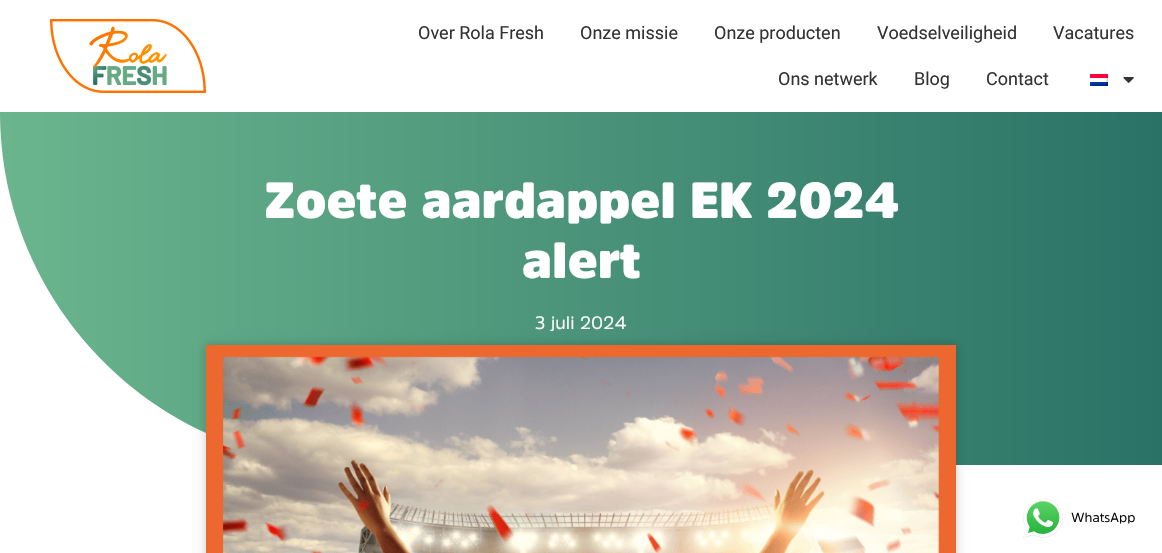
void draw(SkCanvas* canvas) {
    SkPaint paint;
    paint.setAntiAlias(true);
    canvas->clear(0xFFFFFFFF);
    canvas->drawImageRect(SkImages::DeferredFromEncodedData(SkData::MakeFromFileName("img1.png")), SkRect::MakeXYWH(50, 19, 156, 74), SkSamplingOptions());
    SkFont font1(fontMgr->matchFamilyStyle("Roboto", SkFontStyle::Normal()), 18);
    font1.setSubpixel(true);
    paint.setColor(0xFF333333);
    canvas->drawString("Over Rola Fresh", 418, 39, font1, paint);
    canvas->drawString("Onze missie", 580, 39, font1, paint);
    canvas->drawString("Onze producten", 714, 39, font1, paint);
    canvas->drawString("Voedselveiligheid", 877, 39, font1, paint);
    canvas->drawString("Vacatures", 1053, 39, font1, paint);
    canvas->drawString("Ons netwerk", 778, 85, font1, paint);
    canvas->drawString("Blog", 914, 85, font1, paint);
    canvas->drawString("Contact", 986, 85, font1, paint);
    canvas->drawImageRect(SkImages::DeferredFromEncodedData(SkData::MakeFromFileName("img2.png")), SkRect::MakeXYWH(1090, 74, 18, 12), SkSamplingOptions());
    canvas->drawImageRect(SkImages::DeferredFromEncodedData(SkData::MakeFromFileName("img3.png")), SkRect::MakeXYWH(1123, 77, 11, 6), SkSamplingOptions());
    {
        const SkColor colors[] = {0xFF6BB58E, 0xFF2A7266};
        const float stops[] = {0, 1};
        const SkPoint ends[] = {{0, 289}, {1162, 288}};
        paint.setShader(SkGradientShader::MakeLinear(ends, colors, stops, 2, SkTileMode::kClamp));
        paint.setAlpha(255);
    }
    canvas->drawPath(SkPathBuilder().moveTo(0, 112).lineTo(1162, 112).lineTo(1162, 465).lineTo(353, 465).cubicTo(158, 465, 0, 307, 0, 112).close().detach(), paint);
    SkFont font2(fontMgr->matchFamilyStyle("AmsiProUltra", SkFontStyle::Normal()), 50);
    font2.setSubpixel(true);
    paint.setShader(nullptr);
    paint.setColor(0xFFFFFFFF);
    canvas->drawString("Zoete aardappel EK 2024", 264, 218, font2, paint);
    canvas->drawString("alert", 522, 278, font2, paint);
    SkFont font3(fontMgr->matchFamilyStyle("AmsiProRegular", SkFontStyle::Normal()), 18);
    font3.setSubpixel(true);
    canvas->drawString("3 juli 2024", 535, 329, font3, paint);
    paint.setColor(0x33000000);
    paint.setMaskFilter(SkMaskFilter::MakeBlur(kNormal_SkBlurStyle, 5));
    canvas->drawRect(SkRect::MakeXYWH(206, 345, 750, 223), paint);
    paint.setMaskFilter(nullptr);
    canvas->drawImageRect(SkImages::DeferredFromEncodedData(SkData::MakeFromFileName("img4.png")), SkRect::MakeXYWH(206, 345, 750, 208), SkSamplingOptions());
    canvas->drawImageRect(SkImages::DeferredFromEncodedData(SkData::MakeFromFileName("img5.png")), SkRect::MakeXYWH(1023, 498, 40, 40), SkSamplingOptions());
    SkFont font4(fontMgr->matchFamilyStyle("AmsiProRegular", SkFontStyle::Normal()), 13);
    font4.setSubpixel(true);
    paint.setColor(0xFF0A0909);
    canvas->drawString("WhatsApp", 1071, 522, font4, paint);
}
